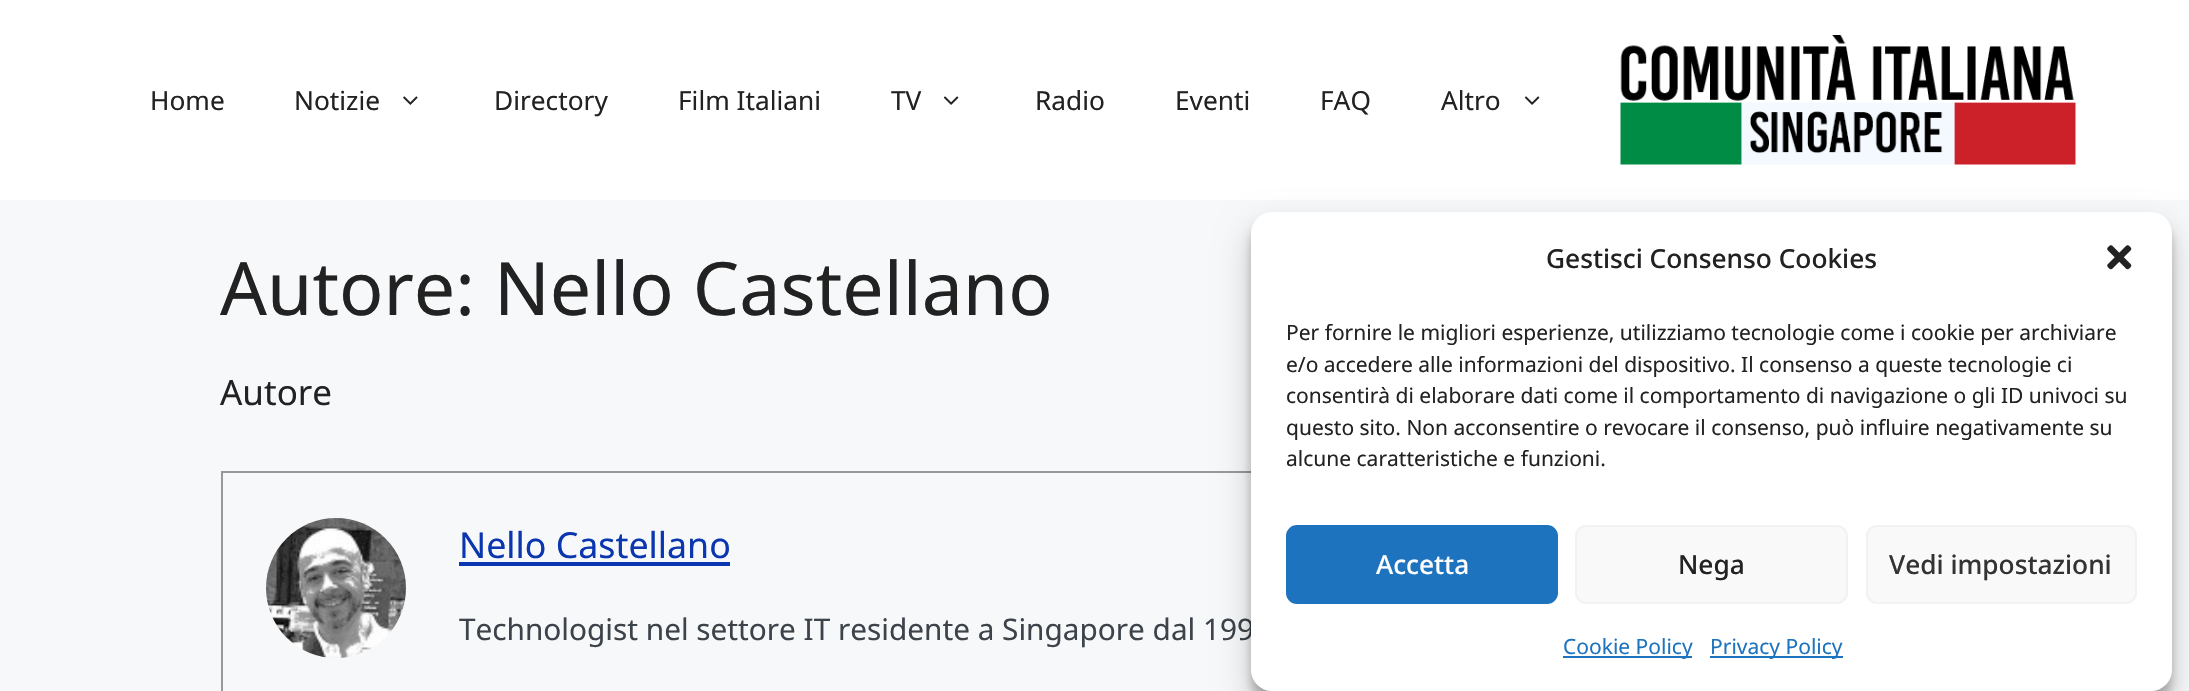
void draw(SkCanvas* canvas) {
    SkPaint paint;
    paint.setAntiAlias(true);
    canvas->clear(0xFFF7F8F9);
    paint.setColor(0xFFFFFFFF);
    canvas->drawRect(SkRect::MakeXYWH(0, 0, 2189, 200), paint);
    SkFont font1(fontMgr->matchFamilyStyle("Noto Sans", SkFontStyle::Normal()), 26.25f);
    font1.setSubpixel(true);
    paint.setColor(0xFF222222);
    canvas->drawString("Home", 150, 110, font1, paint);
    canvas->drawString("Notizie", 294, 110, font1, paint);
    canvas->drawImageRect(SkImages::DeferredFromEncodedData(SkData::MakeFromFileName("img1.png")), SkRect::MakeXYWH(403, 96, 15, 9), SkSamplingOptions());
    canvas->drawString("Directory", 494, 110, font1, paint);
    canvas->drawString("Film Italiani", 678, 110, font1, paint);
    canvas->drawString("TV", 891, 110, font1, paint);
    canvas->drawImageRect(SkImages::DeferredFromEncodedData(SkData::MakeFromFileName("img2.png")), SkRect::MakeXYWH(943, 96, 16, 9), SkSamplingOptions());
    canvas->drawString("Radio", 1035, 110, font1, paint);
    canvas->drawString("Eventi", 1175, 110, font1, paint);
    canvas->drawString("FAQ", 1320, 110, font1, paint);
    canvas->drawString("Altro", 1441, 110, font1, paint);
    canvas->drawImageRect(SkImages::DeferredFromEncodedData(SkData::MakeFromFileName("img2.png")), SkRect::MakeXYWH(1524, 96, 16, 9), SkSamplingOptions());
    canvas->drawImageRect(SkImages::DeferredFromEncodedData(SkData::MakeFromFileName("img3.png")), SkRect::MakeXYWH(1620, 35, 456, 130), SkSamplingOptions());
    SkFont font2(fontMgr->matchFamilyStyle("Noto Sans", SkFontStyle::Normal()), 73.5f);
    font2.setSubpixel(true);
    canvas->drawString("Autore: Nello Castellano", 220, 315, font2, paint);
    SkFont font3(fontMgr->matchFamilyStyle("Noto Sans", SkFontStyle::Normal()), 35);
    font3.setSubpixel(true);
    canvas->drawString("Autore", 220, 405, font3, paint);
    paint.setStyle(SkPaint::kStroke_Style);
    paint.setStrokeWidth(2);
    paint.setColor(0xFF999999);
    canvas->drawRect(SkRect::MakeXYWH(222, 472, 1711, 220), paint);
    canvas->drawImageRect(SkImages::DeferredFromEncodedData(SkData::MakeFromFileName("img4.png")), SkRect::MakeXYWH(266, 518, 140, 140), SkSamplingOptions());
    SkFont font4(fontMgr->matchFamilyStyle("Noto Sans", SkFontStyle::Normal()), 35.75f);
    font4.setSubpixel(true);
    paint.setStyle(SkPaint::kFill_Style);
    paint.setColor(0xFF0A36AF);
    canvas->drawString("Nello Castellano", 459, 558, font4, paint);
    canvas->drawRect(SkRect::MakeXYWH(459, 562, 271, 4), paint);
    SkFont font5(fontMgr->matchFamilyStyle("Noto Sans", SkFontStyle::Normal()), 29.75f);
    font5.setSubpixel(true);
    paint.setColor(0xFF3C434A);
    canvas->drawString("Technologist nel settore IT residente a Singapore dal 199", 459, 640, font5, paint);
    paint.setColor(0x3B000000);
    paint.setMaskFilter(SkMaskFilter::MakeBlur(kNormal_SkBlurStyle, 5));
    canvas->drawRoundRect(SkRect::MakeXYWH(1251, 222, 921, 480), 21, 21, paint);
    paint.setMaskFilter(nullptr);
    paint.setColor(0x30000000);
    paint.setMaskFilter(SkMaskFilter::MakeBlur(kNormal_SkBlurStyle, 17.5f));
    canvas->drawRoundRect(SkRect::MakeXYWH(1251, 229, 921, 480), 21, 21, paint);
    paint.setMaskFilter(nullptr);
    paint.setColor(0xFFFFFFFF);
    canvas->drawRoundRect(SkRect::MakeXYWH(1251, 212, 921, 479), 21, 21, paint);
    SkFont font6(fontMgr->matchFamilyStyle("Noto Sans", SkFontStyle(500, SkFontStyle::kNormal_Width, SkFontStyle::kUpright_Slant)), 26.25f);
    font6.setSubpixel(true);
    paint.setColor(0xFF222222);
    canvas->drawString("Gestisci Consenso Cookies", 1546, 268, font6, paint);
    canvas->drawImageRect(SkImages::DeferredFromEncodedData(SkData::MakeFromFileName("img5.png")), SkRect::MakeXYWH(2107, 245, 25, 25), SkSamplingOptions());
    SkFont font7(fontMgr->matchFamilyStyle("Noto Sans", SkFontStyle::Normal()), 21);
    font7.setSubpixel(true);
    canvas->drawString("Per fornire le migliori esperienze, utilizziamo tecnologie come i cookie per archiviare", 1286, 340, font7, paint);
    canvas->drawString("e/o accedere alle informazioni del dispositivo. Il consenso a queste tecnologie ci", 1286, 372, font7, paint);
    canvas->drawString("consentirà di elaborare dati come il comportamento di navigazione o gli ID univoci su", 1286, 403, font7, paint);
    canvas->drawString("questo sito. Non acconsentire o revocare il consenso, può influire negativamente su", 1286, 435, font7, paint);
    canvas->drawString("alcune caratteristiche e funzioni.", 1286, 466, font7, paint);
    paint.setColor(0xFF1E73BE);
    canvas->drawRoundRect(SkRect::MakeXYWH(1287, 526, 270, 77), 10, 10, paint);
    paint.setStyle(SkPaint::kStroke_Style);
    canvas->drawRoundRect(SkRect::MakeXYWH(1287, 526, 270, 77), 10, 10, paint);
    paint.setStyle(SkPaint::kFill_Style);
    paint.setColor(0xFFFFFFFF);
    canvas->drawString("Accetta", 1376, 574, font6, paint);
    paint.setColor(0xFFF9F9F9);
    canvas->drawRoundRect(SkRect::MakeXYWH(1576, 526, 271, 77), 10, 10, paint);
    paint.setStyle(SkPaint::kStroke_Style);
    paint.setColor(0xFFF2F2F2);
    canvas->drawRoundRect(SkRect::MakeXYWH(1576, 526, 271, 77), 10, 10, paint);
    paint.setStyle(SkPaint::kFill_Style);
    paint.setColor(0xFF222222);
    canvas->drawString("Nega", 1678, 574, font6, paint);
    paint.setColor(0xFFF9F9F9);
    canvas->drawRoundRect(SkRect::MakeXYWH(1867, 526, 269, 77), 10, 10, paint);
    paint.setStyle(SkPaint::kStroke_Style);
    paint.setColor(0xFFF2F2F2);
    canvas->drawRoundRect(SkRect::MakeXYWH(1867, 526, 269, 77), 10, 10, paint);
    paint.setStyle(SkPaint::kFill_Style);
    paint.setColor(0xFF333333);
    canvas->drawString("Vedi impostazioni", 1889, 574, font6, paint);
    paint.setColor(0xFF1E73BE);
    canvas->drawRect(SkRect::MakeXYWH(1563, 656, 129, 2), paint);
    canvas->drawString("Cookie Policy", 1563, 654, font7, paint);
    canvas->drawRect(SkRect::MakeXYWH(1710, 656, 133, 2), paint);
    canvas->drawString("Privacy Policy", 1710, 654, font7, paint);
}
